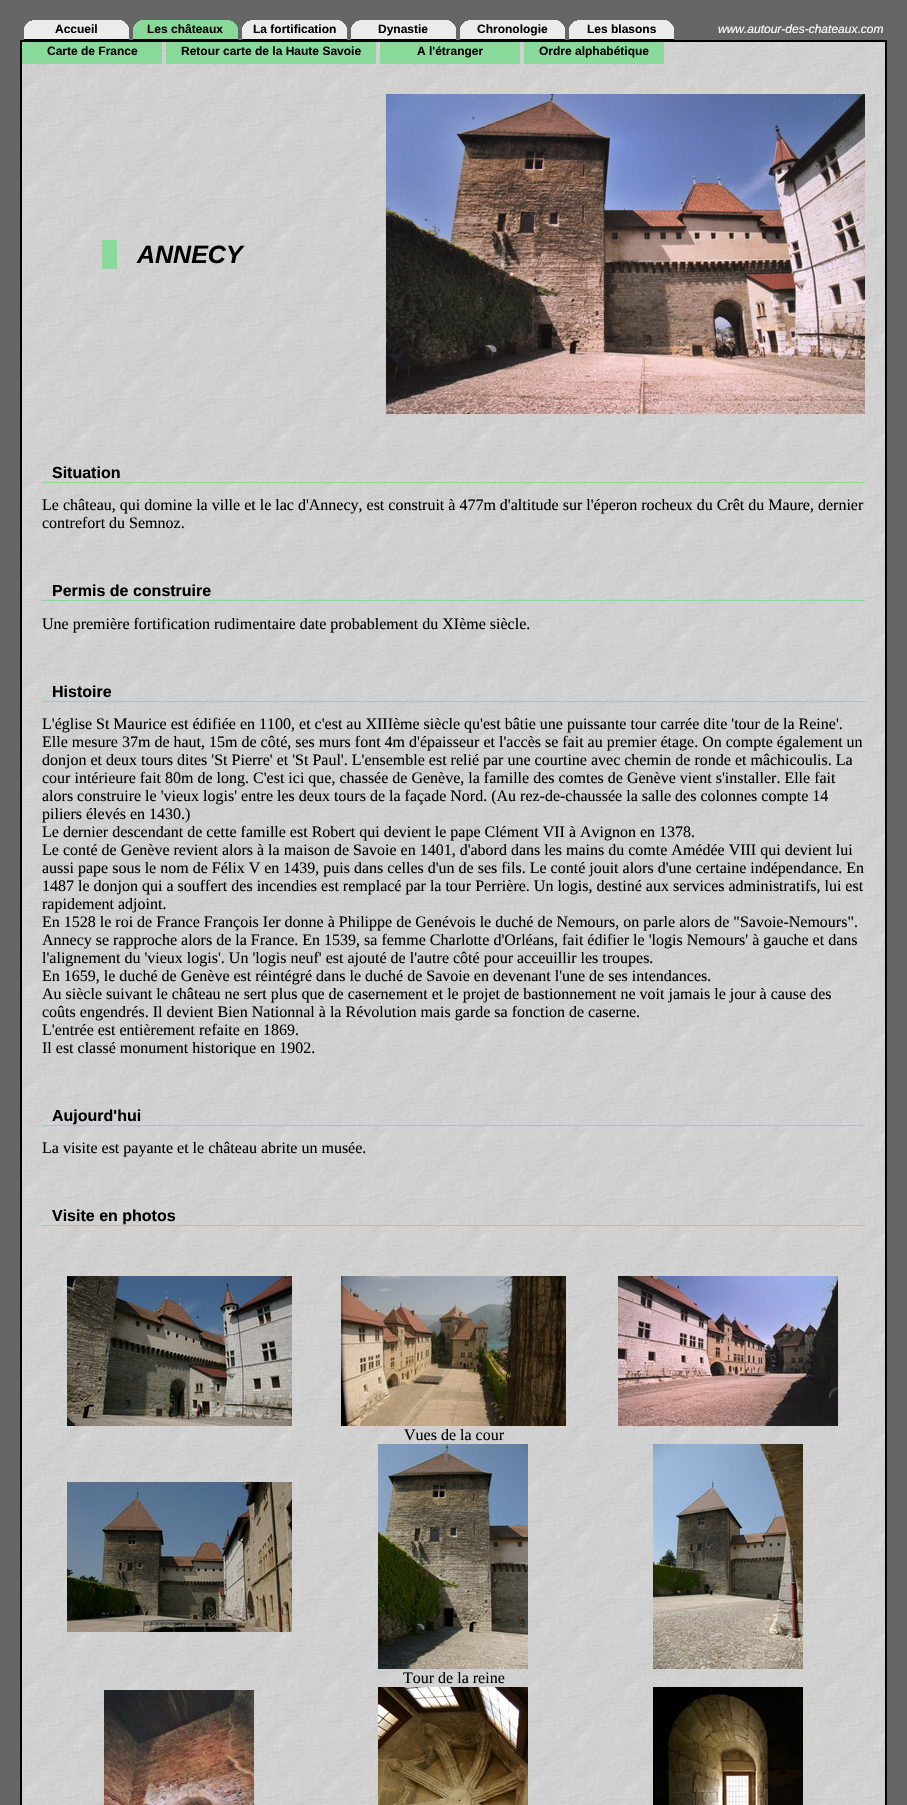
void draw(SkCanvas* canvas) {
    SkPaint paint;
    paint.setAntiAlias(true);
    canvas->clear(0xFF666666);
    canvas->drawImageRect(SkImages::DeferredFromEncodedData(SkData::MakeFromFileName("img1.png")), SkRect::MakeXYWH(24, 20, 105, 20), SkSamplingOptions());
    SkFont font1(fontMgr->matchFamilyStyle("Liberation Sans", SkFontStyle::Bold()), 12);
    font1.setSubpixel(true);
    paint.setColor(0xFF000000);
    canvas->drawString("Accueil", 55, 33, font1, paint);
    canvas->drawImageRect(SkImages::DeferredFromEncodedData(SkData::MakeFromFileName("img2.png")), SkRect::MakeXYWH(133, 20, 105, 20), SkSamplingOptions());
    canvas->drawString("Les châteaux", 147, 33, font1, paint);
    canvas->drawImageRect(SkImages::DeferredFromEncodedData(SkData::MakeFromFileName("img1.png")), SkRect::MakeXYWH(242, 20, 105, 20), SkSamplingOptions());
    canvas->drawString("La fortification", 253, 33, font1, paint);
    canvas->drawImageRect(SkImages::DeferredFromEncodedData(SkData::MakeFromFileName("img1.png")), SkRect::MakeXYWH(351, 20, 105, 20), SkSamplingOptions());
    canvas->drawString("Dynastie", 378, 33, font1, paint);
    canvas->drawImageRect(SkImages::DeferredFromEncodedData(SkData::MakeFromFileName("img1.png")), SkRect::MakeXYWH(460, 20, 105, 20), SkSamplingOptions());
    canvas->drawString("Chronologie", 477, 33, font1, paint);
    canvas->drawImageRect(SkImages::DeferredFromEncodedData(SkData::MakeFromFileName("img1.png")), SkRect::MakeXYWH(569, 20, 105, 20), SkSamplingOptions());
    canvas->drawString("Les blasons", 587, 33, font1, paint);
    SkFont font2(fontMgr->matchFamilyStyle("Liberation Sans", SkFontStyle::Italic()), 12);
    font2.setSubpixel(true);
    paint.setColor(0xFFFFFFFF);
    canvas->drawString("www.autour-des-chateaux.com", 718, 33, font2, paint);
    canvas->drawImageRect(SkImages::DeferredFromEncodedData(SkData::MakeFromFileName("img3.png")), SkRect::MakeXYWH(22, 42, 863, 1763), SkSamplingOptions());
    paint.setStyle(SkPaint::kStroke_Style);
    paint.setStrokeWidth(2);
    paint.setColor(0xFF000000);
    canvas->drawRect(SkRect::MakeXYWH(21, 41, 865, 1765), paint);
    paint.setStyle(SkPaint::kFill_Style);
    paint.setColor(0xFF89DA9A);
    canvas->drawRect(SkRect::MakeXYWH(22, 42, 140, 22), paint);
    paint.setColor(0xFF000000);
    canvas->drawString("Carte de France", 47, 55, font1, paint);
    paint.setColor(0xFF89DA9A);
    canvas->drawRect(SkRect::MakeXYWH(166, 42, 210, 22), paint);
    paint.setColor(0xFF000000);
    canvas->drawString("Retour carte de la Haute Savoie", 181, 55, font1, paint);
    paint.setColor(0xFF89DA9A);
    canvas->drawRect(SkRect::MakeXYWH(380, 42, 140, 22), paint);
    paint.setColor(0xFF000000);
    canvas->drawString("A l'étranger", 417, 55, font1, paint);
    paint.setColor(0xFF89DA9A);
    canvas->drawRect(SkRect::MakeXYWH(524, 42, 140, 22), paint);
    paint.setColor(0xFF000000);
    canvas->drawString("Ordre alphabétique", 539, 55, font1, paint);
    paint.setColor(0xFF89DA9A);
    canvas->drawRect(SkRect::MakeXYWH(102, 240, 15, 29), paint);
    SkFont font3(fontMgr->matchFamilyStyle("Liberation Sans", SkFontStyle::BoldItalic()), 25);
    font3.setSubpixel(true);
    paint.setColor(0xFF000000);
    canvas->drawString("ANNECY", 137, 263, font3, paint);
    canvas->drawImageRect(SkImages::DeferredFromEncodedData(SkData::MakeFromFileName("img4.png")), SkRect::MakeXYWH(386, 94, 479, 320), SkSamplingOptions());
    paint.setColor(0xFF89DA9A);
    canvas->drawRect(SkRect::MakeXYWH(42, 482, 823, 1), paint);
    SkFont font4(fontMgr->matchFamilyStyle("Liberation Sans", SkFontStyle::Bold()), 16);
    font4.setSubpixel(true);
    paint.setColor(0xFF000000);
    canvas->drawString("Situation", 52, 478, font4, paint);
    SkFont font5(fontMgr->matchFamilyStyle("Liberation Serif", SkFontStyle::Normal()), 16);
    font5.setSubpixel(true);
    canvas->drawString("Le château, qui domine la ville et le lac d'Annecy, est construit à 477m d'altitude sur l'éperon rocheux du Crêt du Maure, dernier", 42, 510, font5, paint);
    canvas->drawString("contrefort du Semnoz.", 42, 528, font5, paint);
    paint.setColor(0xFF89DA9A);
    canvas->drawRect(SkRect::MakeXYWH(42, 600, 823, 1), paint);
    paint.setColor(0xFF000000);
    canvas->drawString("Permis de construire", 52, 596, font4, paint);
    canvas->drawString("Une première fortification rudimentaire date probablement du XIème siècle.", 42, 629, font5, paint);
    paint.setColor(0xFF89DA9A);
    canvas->drawRect(SkRect::MakeXYWH(42, 701, 823, 1), paint);
    paint.setColor(0xFF000000);
    canvas->drawString("Histoire", 52, 697, font4, paint);
    canvas->drawString("L'église St Maurice est édifiée en 1100, et c'est au XIIIème siècle qu'est bâtie une puissante tour carrée dite 'tour de la Reine'.", 42, 729, font5, paint);
    canvas->drawString("Elle mesure 37m de haut, 15m de côté, ses murs font 4m d'épaisseur et l'accès se fait au premier étage. On compte également un", 42, 747, font5, paint);
    canvas->drawString("donjon et deux tours dites 'St Pierre' et 'St Paul'. L'ensemble est relié par une courtine avec chemin de ronde et mâchicoulis. La", 42, 765, font5, paint);
    canvas->drawString("cour intérieure fait 80m de long. C'est ici que, chassée de Genève, la famille des comtes de Genève vient s'installer. Elle fait", 42, 783, font5, paint);
    canvas->drawString("alors construire le 'vieux logis' entre les deux tours de la façade Nord. (Au rez-de-chaussée la salle des colonnes compte 14", 42, 801, font5, paint);
    canvas->drawString("piliers élevés en 1430.)", 42, 819, font5, paint);
    canvas->drawString("Le dernier descendant de cette famille est Robert qui devient le pape Clément VII à Avignon en 1378.", 42, 837, font5, paint);
    canvas->drawString("Le conté de Genève revient alors à la maison de Savoie en 1401, d'abord dans les mains du comte Amédée VIII qui devient lui", 42, 855, font5, paint);
    canvas->drawString("aussi pape sous le nom de Félix V en 1439, puis dans celles d'un de ses fils. Le conté jouit alors d'une certaine indépendance. En", 42, 873, font5, paint);
    canvas->drawString("1487 le donjon qui a souffert des incendies est remplacé par la tour Perrière. Un logis, destiné aux services administratifs, lui est", 42, 891, font5, paint);
    canvas->drawString("rapidement adjoint.", 42, 909, font5, paint);
    canvas->drawString("En 1528 le roi de France François Ier donne à Philippe de Genévois le duché de Nemours, on parle alors de \"Savoie-Nemours\".", 42, 927, font5, paint);
    canvas->drawString("Annecy se rapproche alors de la France. En 1539, sa femme Charlotte d'Orléans, fait édifier le 'logis Nemours' à gauche et dans", 42, 945, font5, paint);
    canvas->drawString("l'alignement du 'vieux logis'. Un 'logis neuf' est ajouté de l'autre côté pour acceuillir les troupes.", 42, 963, font5, paint);
    canvas->drawString("En 1659, le duché de Genève est réintégré dans le duché de Savoie en devenant l'une de ses intendances.", 42, 981, font5, paint);
    canvas->drawString("Au siècle suivant le château ne sert plus que de casernement et le projet de bastionnement ne voit jamais le jour à cause des", 42, 999, font5, paint);
    canvas->drawString("coûts engendrés. Il devient Bien Nationnal à la Révolution mais garde sa fonction de caserne.", 42, 1017, font5, paint);
    canvas->drawString("L'entrée est entièrement refaite en 1869.", 42, 1035, font5, paint);
    canvas->drawString("Il est classé monument historique en 1902.", 42, 1053, font5, paint);
    paint.setColor(0xFF89DA9A);
    canvas->drawRect(SkRect::MakeXYWH(42, 1125, 823, 1), paint);
    paint.setColor(0xFF000000);
    canvas->drawString("Aujourd'hui", 52, 1121, font4, paint);
    canvas->drawString("La visite est payante et le château abrite un musée.", 42, 1153, font5, paint);
    paint.setColor(0xFF89DA9A);
    canvas->drawRect(SkRect::MakeXYWH(42, 1225, 823, 1), paint);
    paint.setColor(0xFF000000);
    canvas->drawString("Visite en photos", 52, 1221, font4, paint);
    canvas->drawImageRect(SkImages::DeferredFromEncodedData(SkData::MakeFromFileName("img5.png")), SkRect::MakeXYWH(67, 1276, 225, 150), SkSamplingOptions());
    canvas->drawImageRect(SkImages::DeferredFromEncodedData(SkData::MakeFromFileName("img6.png")), SkRect::MakeXYWH(341, 1276, 225, 150), SkSamplingOptions());
    canvas->drawImageRect(SkImages::DeferredFromEncodedData(SkData::MakeFromFileName("img7.png")), SkRect::MakeXYWH(618, 1276, 220, 150), SkSamplingOptions());
    canvas->drawString("Vues de la cour", 404, 1440, font5, paint);
    canvas->drawImageRect(SkImages::DeferredFromEncodedData(SkData::MakeFromFileName("img8.png")), SkRect::MakeXYWH(67, 1482, 225, 150), SkSamplingOptions());
    canvas->drawImageRect(SkImages::DeferredFromEncodedData(SkData::MakeFromFileName("img9.png")), SkRect::MakeXYWH(378, 1444, 150, 225), SkSamplingOptions());
    canvas->drawImageRect(SkImages::DeferredFromEncodedData(SkData::MakeFromFileName("img10.png")), SkRect::MakeXYWH(653, 1444, 150, 225), SkSamplingOptions());
    canvas->drawString("Tour de la reine", 403, 1683, font5, paint);
    canvas->drawImageRect(SkImages::DeferredFromEncodedData(SkData::MakeFromFileName("img11.png")), SkRect::MakeXYWH(104, 1690, 150, 115), SkSamplingOptions());
    canvas->drawImageRect(SkImages::DeferredFromEncodedData(SkData::MakeFromFileName("img12.png")), SkRect::MakeXYWH(378, 1687, 150, 118), SkSamplingOptions());
    canvas->drawImageRect(SkImages::DeferredFromEncodedData(SkData::MakeFromFileName("img13.png")), SkRect::MakeXYWH(653, 1687, 150, 118), SkSamplingOptions());
}
